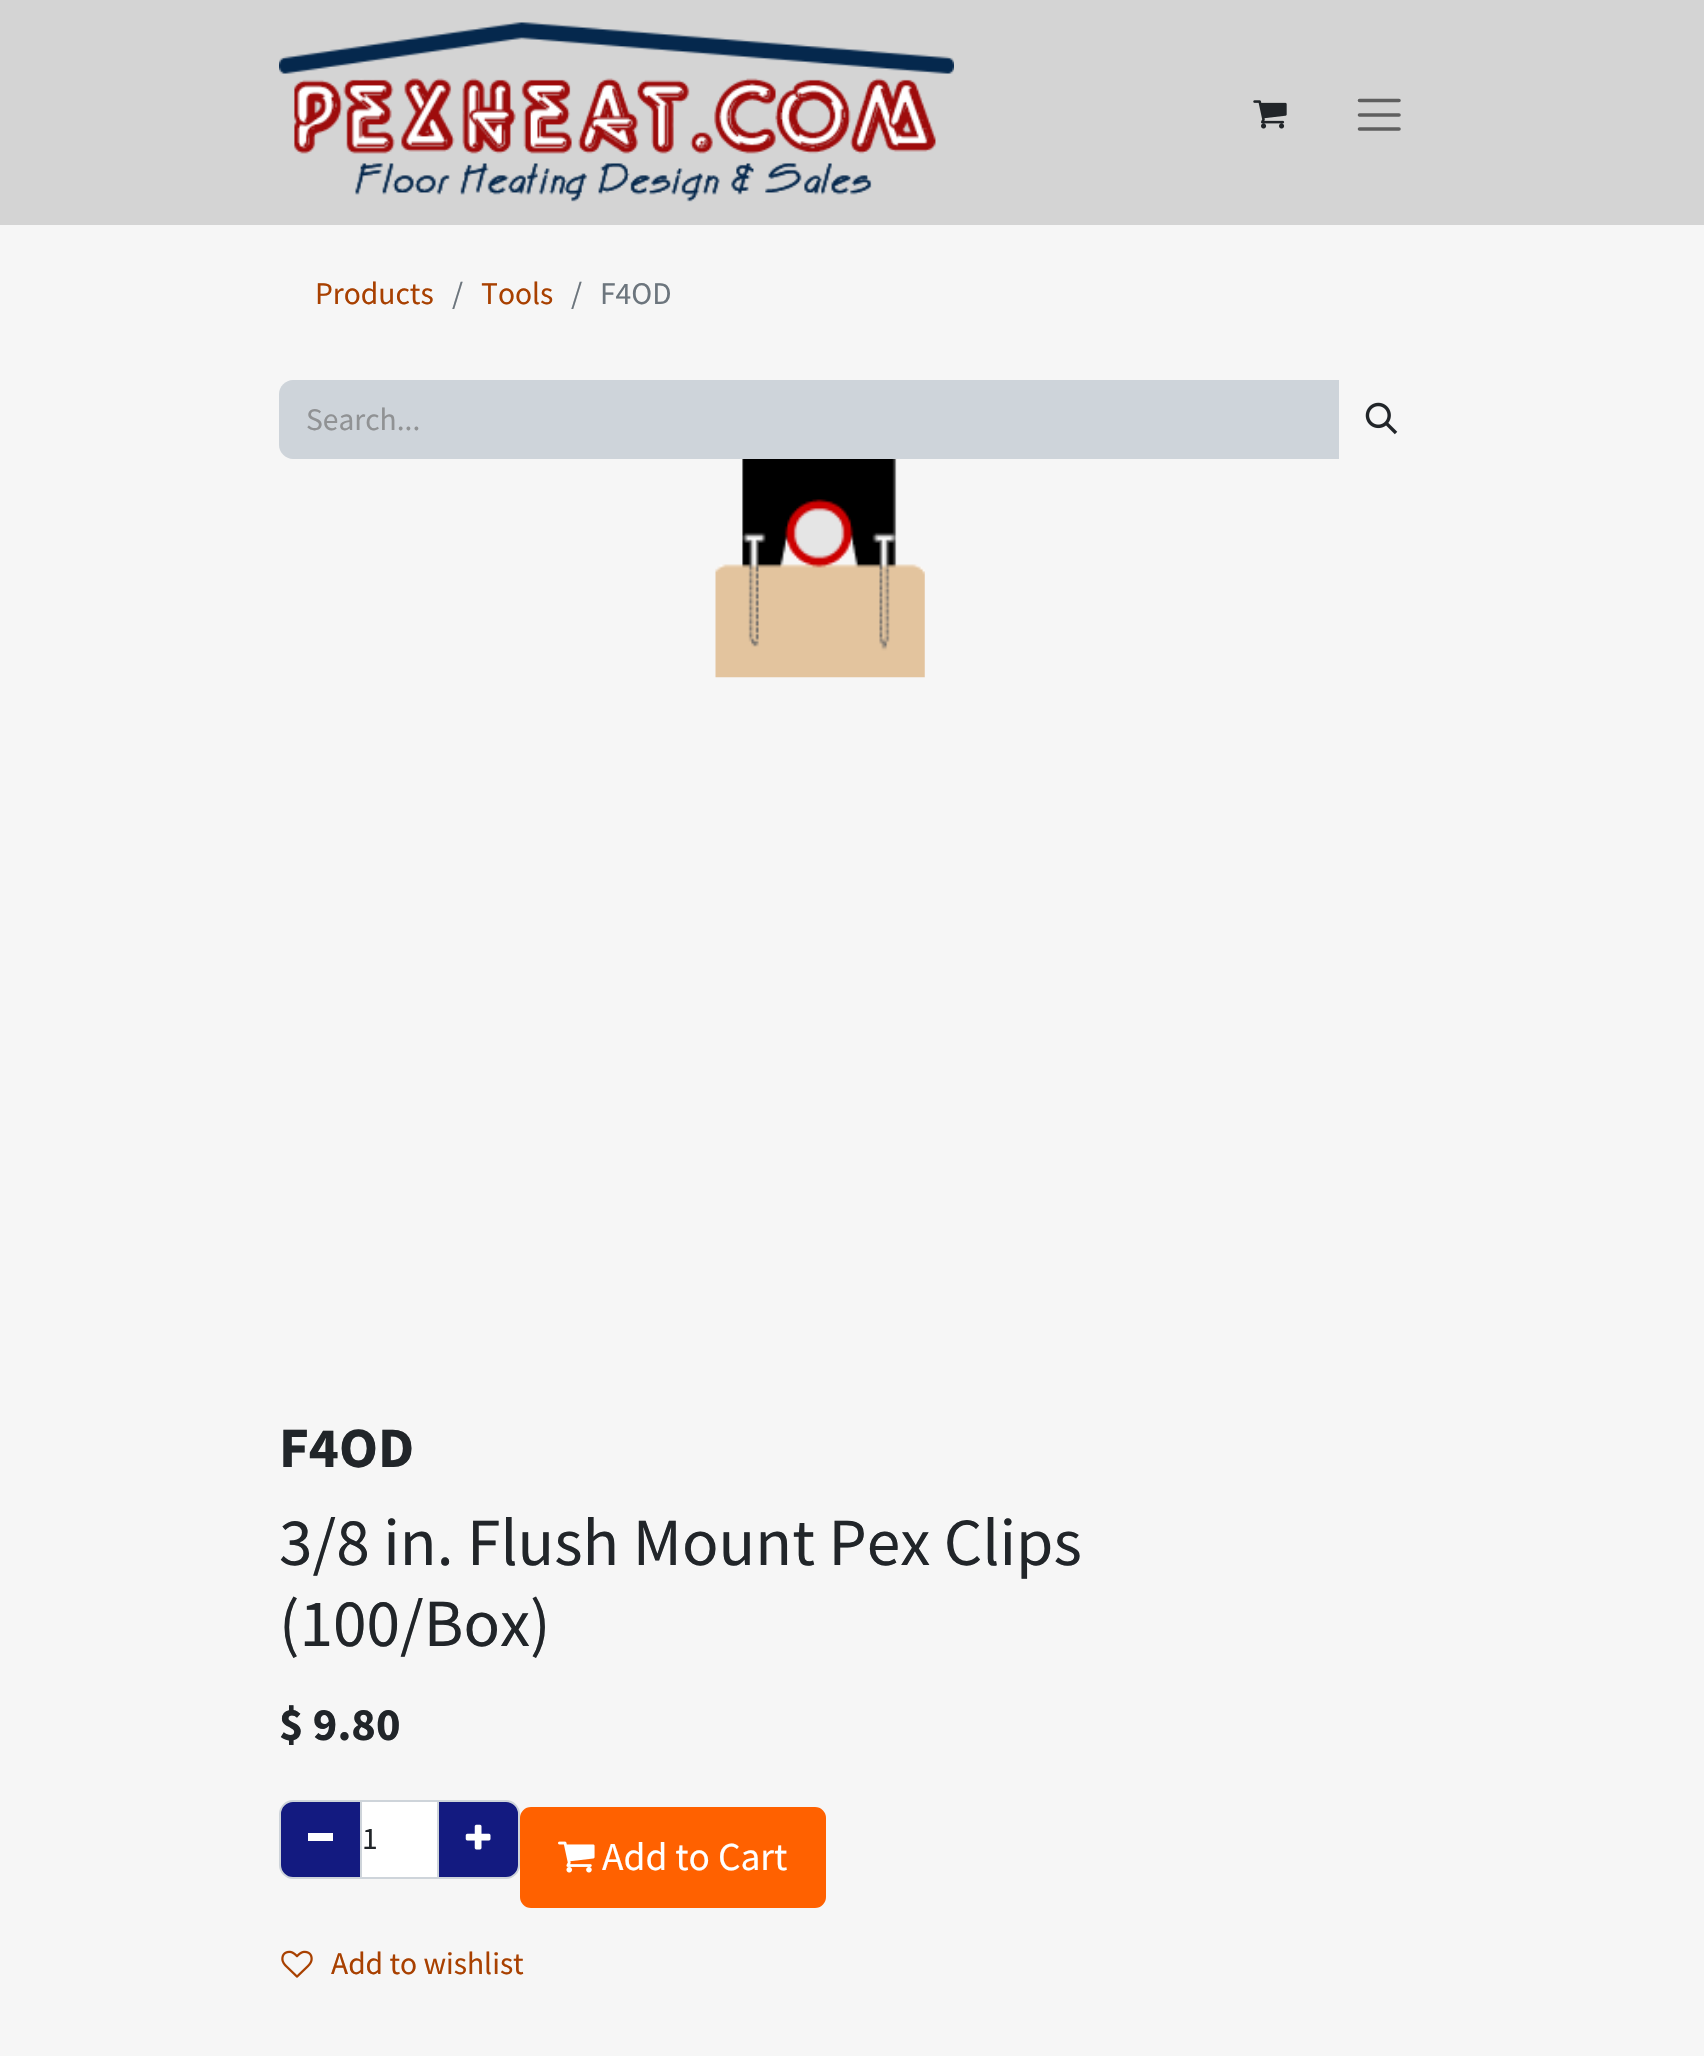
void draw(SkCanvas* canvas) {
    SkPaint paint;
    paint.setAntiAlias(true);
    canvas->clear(0xFFF6F6F6);
    paint.setColor(0xFFD4D4D4);
    canvas->drawRect(SkRect::MakeXYWH(0, 0, 1704, 225), paint);
    canvas->drawImageRect(SkImages::DeferredFromEncodedData(SkData::MakeFromFileName("img1.png")), SkRect::MakeXYWH(279, 22, 675, 180), SkSamplingOptions());
    canvas->drawImageRect(SkImages::DeferredFromEncodedData(SkData::MakeFromFileName("img2.png")), SkRect::MakeXYWH(1253, 100, 34, 29), SkSamplingOptions());
    paint.setStyle(SkPaint::kStroke_Style);
    paint.setStrokeWidth(3.6f);
    paint.setStrokeCap(SkPaint::kRound_Cap);
    paint.setColor(0xFF5F5F5F);
    canvas->drawPath(SkPathBuilder().moveTo(1359.5f, 100.5f).lineTo(1399, 100.5f).moveTo(1359.5f, 115).lineTo(1399, 115).moveTo(1359.5f, 129).lineTo(1399, 129).detach(), paint);
    SkFont font1(fontMgr->matchFamilyStyle("Source Sans Pro", SkFontStyle::Normal()), 31.5f);
    font1.setSubpixel(true);
    paint.setStyle(SkPaint::kFill_Style);
    paint.setColor(0xFFA84000);
    canvas->drawString("Products", 315, 304, font1, paint);
    paint.setColor(0xFF6C757D);
    canvas->drawString("/", 452, 304, font1, paint);
    paint.setColor(0xFFA84000);
    canvas->drawString("Tools", 481, 304, font1, paint);
    paint.setColor(0xFF6C757D);
    canvas->drawString("/", 571, 304, font1, paint);
    canvas->drawString("F4OD", 600, 304, font1, paint);
    paint.setColor(0xFFCED4DA);
    canvas->drawPath(SkPathBuilder().moveTo(293, 380).lineTo(1339, 380).lineTo(1339, 459).lineTo(293, 459).cubicTo(285.5f, 459, 279, 452.5f, 279, 445).lineTo(279, 394).cubicTo(279, 386.5f, 285.5f, 380, 293, 380).close().detach(), paint);
    paint.setColor(0xFF909294);
    canvas->drawString("Search...", 306, 430, font1, paint);
    canvas->drawImageRect(SkImages::DeferredFromEncodedData(SkData::MakeFromFileName("img3.png")), SkRect::MakeXYWH(1365, 402, 33, 33), SkSamplingOptions());
    canvas->drawImageRect(SkImages::DeferredFromEncodedData(SkData::MakeFromFileName("img4.png")), SkRect::MakeXYWH(715, 459, 210, 219), SkSamplingOptions());
    SkFont font2(fontMgr->matchFamilyStyle("Source Sans Pro", SkFontStyle::Bold()), 57);
    font2.setSubpixel(true);
    paint.setColor(0xFF212529);
    canvas->drawString("F4OD", 279, 1467, font2, paint);
    SkFont font3(fontMgr->matchFamilyStyle("Source Sans Pro", SkFontStyle::Normal()), 67.5f);
    font3.setSubpixel(true);
    canvas->drawString("3/8 in. Flush Mount Pex Clips", 279, 1565, font3, paint);
    canvas->drawString("(100/Box)", 279, 1646, font3, paint);
    SkFont font4(fontMgr->matchFamilyStyle("Source Sans Pro", SkFontStyle::Bold()), 46.5f);
    font4.setSubpixel(true);
    canvas->drawString("$ 9.80", 279, 1740, font4, paint);
    paint.setColor(0xFFFFFFFF);
    canvas->drawRect(SkRect::MakeXYWH(361, 1801, 77, 77), paint);
    paint.setStyle(SkPaint::kStroke_Style);
    paint.setStrokeWidth(2);
    paint.setStrokeCap(SkPaint::kButt_Cap);
    paint.setColor(0xFFCED4DA);
    canvas->drawRect(SkRect::MakeXYWH(361, 1801, 77, 77), paint);
    paint.setStyle(SkPaint::kFill_Style);
    paint.setColor(0xFF131A80);
    canvas->drawPath(SkPathBuilder().moveTo(293, 1801).lineTo(361, 1801).lineTo(361, 1878).lineTo(293, 1878).cubicTo(286, 1878, 280, 1872, 280, 1865).lineTo(280, 1814).cubicTo(280, 1807, 286, 1801, 293, 1801).close().detach(), paint);
    paint.setStyle(SkPaint::kStroke_Style);
    paint.setColor(0xFFCED4DA);
    canvas->drawPath(SkPathBuilder().moveTo(293, 1801).lineTo(361, 1801).lineTo(361, 1878).lineTo(293, 1878).cubicTo(286, 1878, 280, 1872, 280, 1865).lineTo(280, 1814).cubicTo(280, 1807, 286, 1801, 293, 1801).close().detach(), paint);
    paint.setStyle(SkPaint::kFill_Style);
    paint.setColor(0xFFFFFFFF);
    canvas->drawRect(SkRect::MakeXYWH(308, 1833, 25, 8), paint);
    paint.setColor(0xFF212529);
    canvas->drawString("1", 362, 1849, font1, paint);
    paint.setColor(0xFF131A80);
    canvas->drawPath(SkPathBuilder().moveTo(438, 1801).lineTo(506, 1801).cubicTo(513, 1801, 519, 1807, 519, 1814).lineTo(519, 1865).cubicTo(519, 1872, 513, 1878, 506, 1878).lineTo(438, 1878).close().detach(), paint);
    paint.setStyle(SkPaint::kStroke_Style);
    paint.setColor(0xFFCED4DA);
    canvas->drawPath(SkPathBuilder().moveTo(438, 1801).lineTo(506, 1801).cubicTo(513, 1801, 519, 1807, 519, 1814).lineTo(519, 1865).cubicTo(519, 1872, 513, 1878, 506, 1878).lineTo(438, 1878).close().detach(), paint);
    canvas->drawImageRect(SkImages::DeferredFromEncodedData(SkData::MakeFromFileName("img5.png")), SkRect::MakeXYWH(465, 1824, 26, 26), SkSamplingOptions());
    paint.setStyle(SkPaint::kFill_Style);
    paint.setColor(0xFFFF6100);
    canvas->drawRoundRect(SkRect::MakeXYWH(521, 1808, 304, 99), 10, 10, paint);
    paint.setStyle(SkPaint::kStroke_Style);
    canvas->drawRoundRect(SkRect::MakeXYWH(521, 1808, 304, 99), 10, 10, paint);
    canvas->drawImageRect(SkImages::DeferredFromEncodedData(SkData::MakeFromFileName("img6.png")), SkRect::MakeXYWH(558, 1841, 37, 32), SkSamplingOptions());
    SkFont font5(fontMgr->matchFamilyStyle("Source Sans Pro", SkFontStyle::Normal()), 39.5f);
    font5.setSubpixel(true);
    paint.setStyle(SkPaint::kFill_Style);
    paint.setColor(0xFFFFFFFF);
    canvas->drawString("Add to Cart", 602, 1870, font5, paint);
    canvas->drawImageRect(SkImages::DeferredFromEncodedData(SkData::MakeFromFileName("img7.png")), SkRect::MakeXYWH(281, 1950, 32, 28), SkSamplingOptions());
    paint.setColor(0xFFA84000);
    canvas->drawString("Add to wishlist", 331, 1974, font1, paint);
}
